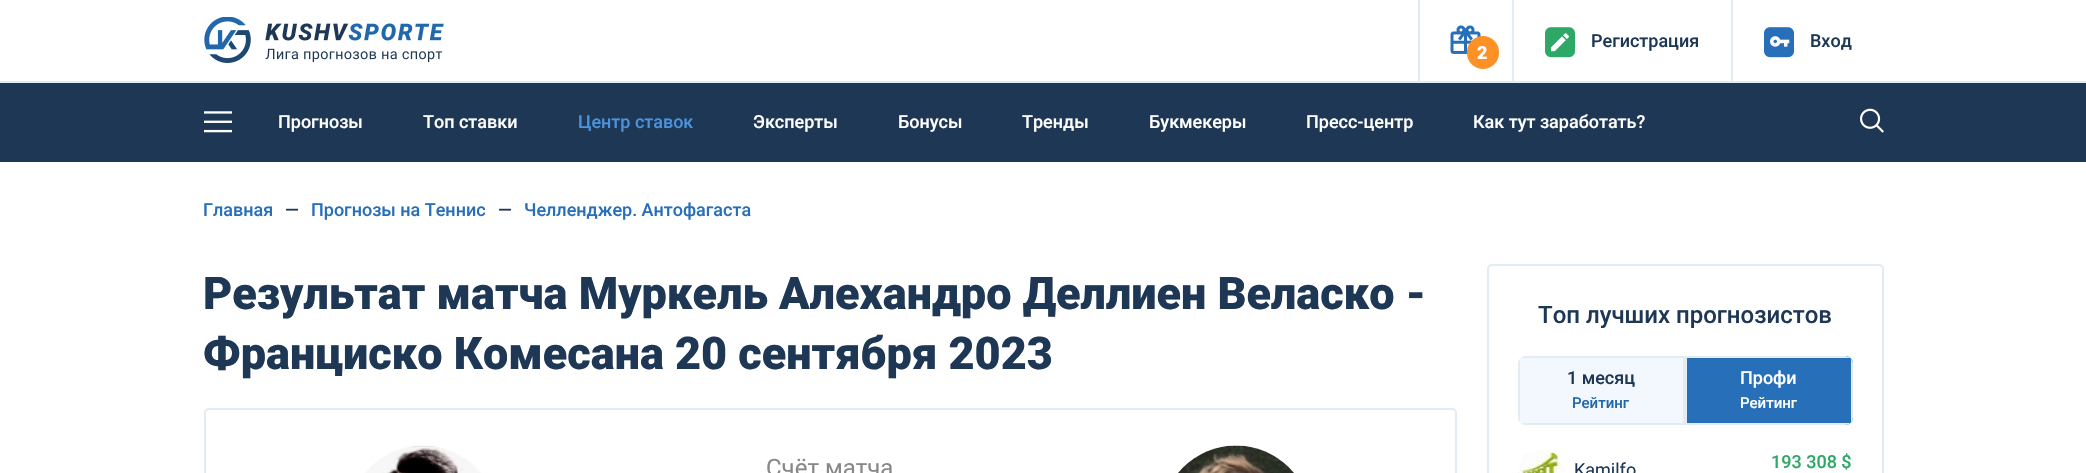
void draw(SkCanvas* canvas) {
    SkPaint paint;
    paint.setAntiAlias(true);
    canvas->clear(0xFFFFFFFF);
    canvas->drawImageRect(SkImages::DeferredFromEncodedData(SkData::MakeFromFileName("img1.png")), SkRect::MakeXYWH(204, 17, 240, 46), SkSamplingOptions());
    paint.setColor(0xFFE2ECF3);
    canvas->drawRect(SkRect::MakeXYWH(1512, 0, 2, 81), paint);
    canvas->drawImageRect(SkImages::DeferredFromEncodedData(SkData::MakeFromFileName("img2.png")), SkRect::MakeXYWH(1545, 27, 30, 31), SkSamplingOptions());
    SkFont font1(fontMgr->matchFamilyStyle("Roboto", SkFontStyle(500, SkFontStyle::kNormal_Width, SkFontStyle::kUpright_Slant)), 18);
    font1.setSubpixel(true);
    paint.setColor(0xFF1D3755);
    canvas->drawString("Регистрация", 1591, 47, font1, paint);
    paint.setColor(0xFFE2ECF3);
    canvas->drawRect(SkRect::MakeXYWH(1731, 0, 2, 81), paint);
    canvas->drawImageRect(SkImages::DeferredFromEncodedData(SkData::MakeFromFileName("img3.png")), SkRect::MakeXYWH(1764, 27, 30, 31), SkSamplingOptions());
    paint.setColor(0xFF1D3755);
    canvas->drawString("Вход", 1810, 47, font1, paint);
    paint.setColor(0xFFE2ECF3);
    canvas->drawRect(SkRect::MakeXYWH(0, 81, 2086, 2), paint);
    canvas->drawRect(SkRect::MakeXYWH(1418, 0, 2, 83), paint);
    canvas->drawImageRect(SkImages::DeferredFromEncodedData(SkData::MakeFromFileName("img4.png")), SkRect::MakeXYWH(1450, 25, 31, 29), SkSamplingOptions());
    paint.setColor(0xFFFD9126);
    canvas->drawRoundRect(SkRect::MakeXYWH(1467, 36, 32, 33), 16, 16, paint);
    SkFont font2(fontMgr->matchFamilyStyle("Roboto", SkFontStyle(900, SkFontStyle::kNormal_Width, SkFontStyle::kUpright_Slant)), 18);
    font2.setSubpixel(true);
    paint.setColor(0xFFFFFFFF);
    canvas->drawString("2", 1477, 59, font2, paint);
    paint.setColor(0xFF1D3755);
    canvas->drawRect(SkRect::MakeXYWH(0, 83, 2086, 79), paint);
    canvas->drawImageRect(SkImages::DeferredFromEncodedData(SkData::MakeFromFileName("img5.png")), SkRect::MakeXYWH(204, 111, 28, 22), SkSamplingOptions());
    paint.setColor(0xFFFFFFFF);
    canvas->drawString("Прогнозы", 278, 128, font1, paint);
    canvas->drawString("Топ ставки", 423, 128, font1, paint);
    paint.setColor(0xFF4B93DD);
    canvas->drawString("Центр ставок", 578, 128, font1, paint);
    paint.setColor(0xFFFFFFFF);
    canvas->drawString("Эксперты", 753, 128, font1, paint);
    canvas->drawString("Бонусы", 898, 128, font1, paint);
    canvas->drawString("Тренды", 1022, 128, font1, paint);
    canvas->drawString("Букмекеры", 1149, 128, font1, paint);
    canvas->drawString("Пресс-центр", 1306, 128, font1, paint);
    canvas->drawString("Как тут заработать?", 1473, 128, font1, paint);
    canvas->drawImageRect(SkImages::DeferredFromEncodedData(SkData::MakeFromFileName("img6.png")), SkRect::MakeXYWH(1860, 108, 24, 25), SkSamplingOptions());
    paint.setColor(0xFF276FB9);
    canvas->drawString("Главная", 203, 216, font1, paint);
    paint.setColor(0xFF1D3755);
    canvas->drawString("—", 285, 216, font1, paint);
    paint.setColor(0xFF276FB9);
    canvas->drawString("Прогнозы на Теннис", 311, 216, font1, paint);
    paint.setColor(0xFF1D3755);
    canvas->drawString("—", 498, 216, font1, paint);
    paint.setColor(0xFF276FB9);
    canvas->drawString("Челленджер. Антофагаста", 524, 216, font1, paint);
    SkFont font3(fontMgr->matchFamilyStyle("Roboto", SkFontStyle(900, SkFontStyle::kNormal_Width, SkFontStyle::kUpright_Slant)), 45);
    font3.setSubpixel(true);
    paint.setColor(0xFF1D3755);
    canvas->drawString("Результат матча Муркель Алехандро Деллиен Веласко -", 203, 309, font3, paint);
    canvas->drawString("Франциско Комесана 20 сентября 2023", 203, 369, font3, paint);
    paint.setStyle(SkPaint::kStroke_Style);
    paint.setStrokeWidth(2);
    paint.setColor(0xFFE2ECF3);
    canvas->drawRoundRect(SkRect::MakeXYWH(205, 409, 1251, 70), 4, 4, paint);
    canvas->drawImageRect(SkImages::DeferredFromEncodedData(SkData::MakeFromFileName("img7.png")), SkRect::MakeXYWH(365, 445, 116, 28), SkSamplingOptions());
    SkFont font4(fontMgr->matchFamilyStyle("Roboto", SkFontStyle::Normal()), 24);
    font4.setSubpixel(true);
    paint.setStyle(SkPaint::kFill_Style);
    paint.setColor(0xFF888888);
    canvas->drawString("Счёт матча", 766, 476, font4, paint);
    canvas->drawImageRect(SkImages::DeferredFromEncodedData(SkData::MakeFromFileName("img8.png")), SkRect::MakeXYWH(1178, 445, 116, 28), SkSamplingOptions());
    paint.setStyle(SkPaint::kStroke_Style);
    paint.setColor(0xFFE2ECF3);
    canvas->drawRoundRect(SkRect::MakeXYWH(1488, 265, 395, 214), 4, 4, paint);
    SkFont font5(fontMgr->matchFamilyStyle("Roboto", SkFontStyle(500, SkFontStyle::kNormal_Width, SkFontStyle::kUpright_Slant)), 24);
    font5.setSubpixel(true);
    paint.setStyle(SkPaint::kFill_Style);
    paint.setColor(0xFF1D3755);
    canvas->drawString("Топ лучших прогнозистов", 1538, 323, font5, paint);
    paint.setColor(0xFFF2F8FD);
    canvas->drawPath(SkPathBuilder().moveTo(1526, 356).lineTo(1685, 356).lineTo(1685, 425).lineTo(1526, 425).cubicTo(1521.5f, 425, 1518, 421.5f, 1518, 417).lineTo(1518, 364).cubicTo(1518, 359.5f, 1521.5f, 356, 1526, 356).close().detach(), paint);
    paint.setColor(0xFFE2ECF3);
    canvas->drawPath(SkPathBuilder(SkPathFillType::kEvenOdd).moveTo(1518, 364).lineTo(1518, 417).cubicTo(1518, 419, 1519, 421, 1520, 422).lineTo(1520, 359).cubicTo(1519, 360, 1518, 362, 1518, 364).close().moveTo(1526, 356).cubicTo(1524, 356, 1522, 357, 1521, 358).lineTo(1683, 358).lineTo(1683, 423).lineTo(1521, 423).cubicTo(1522, 424, 1524, 425, 1526, 425).lineTo(1685, 425).lineTo(1685, 356).close().detach(), paint);
    paint.setColor(0xFF1D3755);
    canvas->drawString("1 месяц", 1567, 384, font1, paint);
    SkFont font6(fontMgr->matchFamilyStyle("Roboto", SkFontStyle(500, SkFontStyle::kNormal_Width, SkFontStyle::kUpright_Slant)), 15);
    font6.setSubpixel(true);
    paint.setColor(0xFF2167AC);
    canvas->drawString("Рейтинг", 1572, 408, font6, paint);
    paint.setColor(0xFF276FB9);
    canvas->drawPath(SkPathBuilder().moveTo(1685, 356).lineTo(1845, 356).cubicTo(1849.5f, 356, 1853, 359.5f, 1853, 364).lineTo(1853, 417).cubicTo(1853, 421.5f, 1849.5f, 425, 1845, 425).lineTo(1685, 425).close().detach(), paint);
    paint.setColor(0xFFE2ECF3);
    canvas->drawPath(SkPathBuilder(SkPathFillType::kEvenOdd).moveTo(1685, 356).lineTo(1685, 425).lineTo(1845, 425).cubicTo(1847, 425, 1849, 424, 1850, 423).lineTo(1687, 423).lineTo(1687, 358).lineTo(1850, 358).cubicTo(1849, 357, 1847, 356, 1845, 356).close().moveTo(1851, 359).lineTo(1851, 422).cubicTo(1852, 421, 1853, 419, 1853, 417).lineTo(1853, 364).cubicTo(1853, 362, 1852, 360, 1851, 359).close().detach(), paint);
    paint.setColor(0xFFFFFFFF);
    canvas->drawString("Профи", 1740, 384, font1, paint);
    canvas->drawString("Рейтинг", 1740, 408, font6, paint);
    canvas->drawImageRect(SkImages::DeferredFromEncodedData(SkData::MakeFromFileName("img9.png")), SkRect::MakeXYWH(1518, 449, 44, 24), SkSamplingOptions());
    SkFont font7(fontMgr->matchFamilyStyle("Roboto", SkFontStyle::Normal()), 18);
    font7.setSubpixel(true);
    paint.setColor(0xFF1D3755);
    canvas->drawString("Kamilfo", 1574, 476, font7, paint);
    paint.setColor(0xFF2DA866);
    canvas->drawString("193 308 $", 1771, 468, font1, paint);
}
